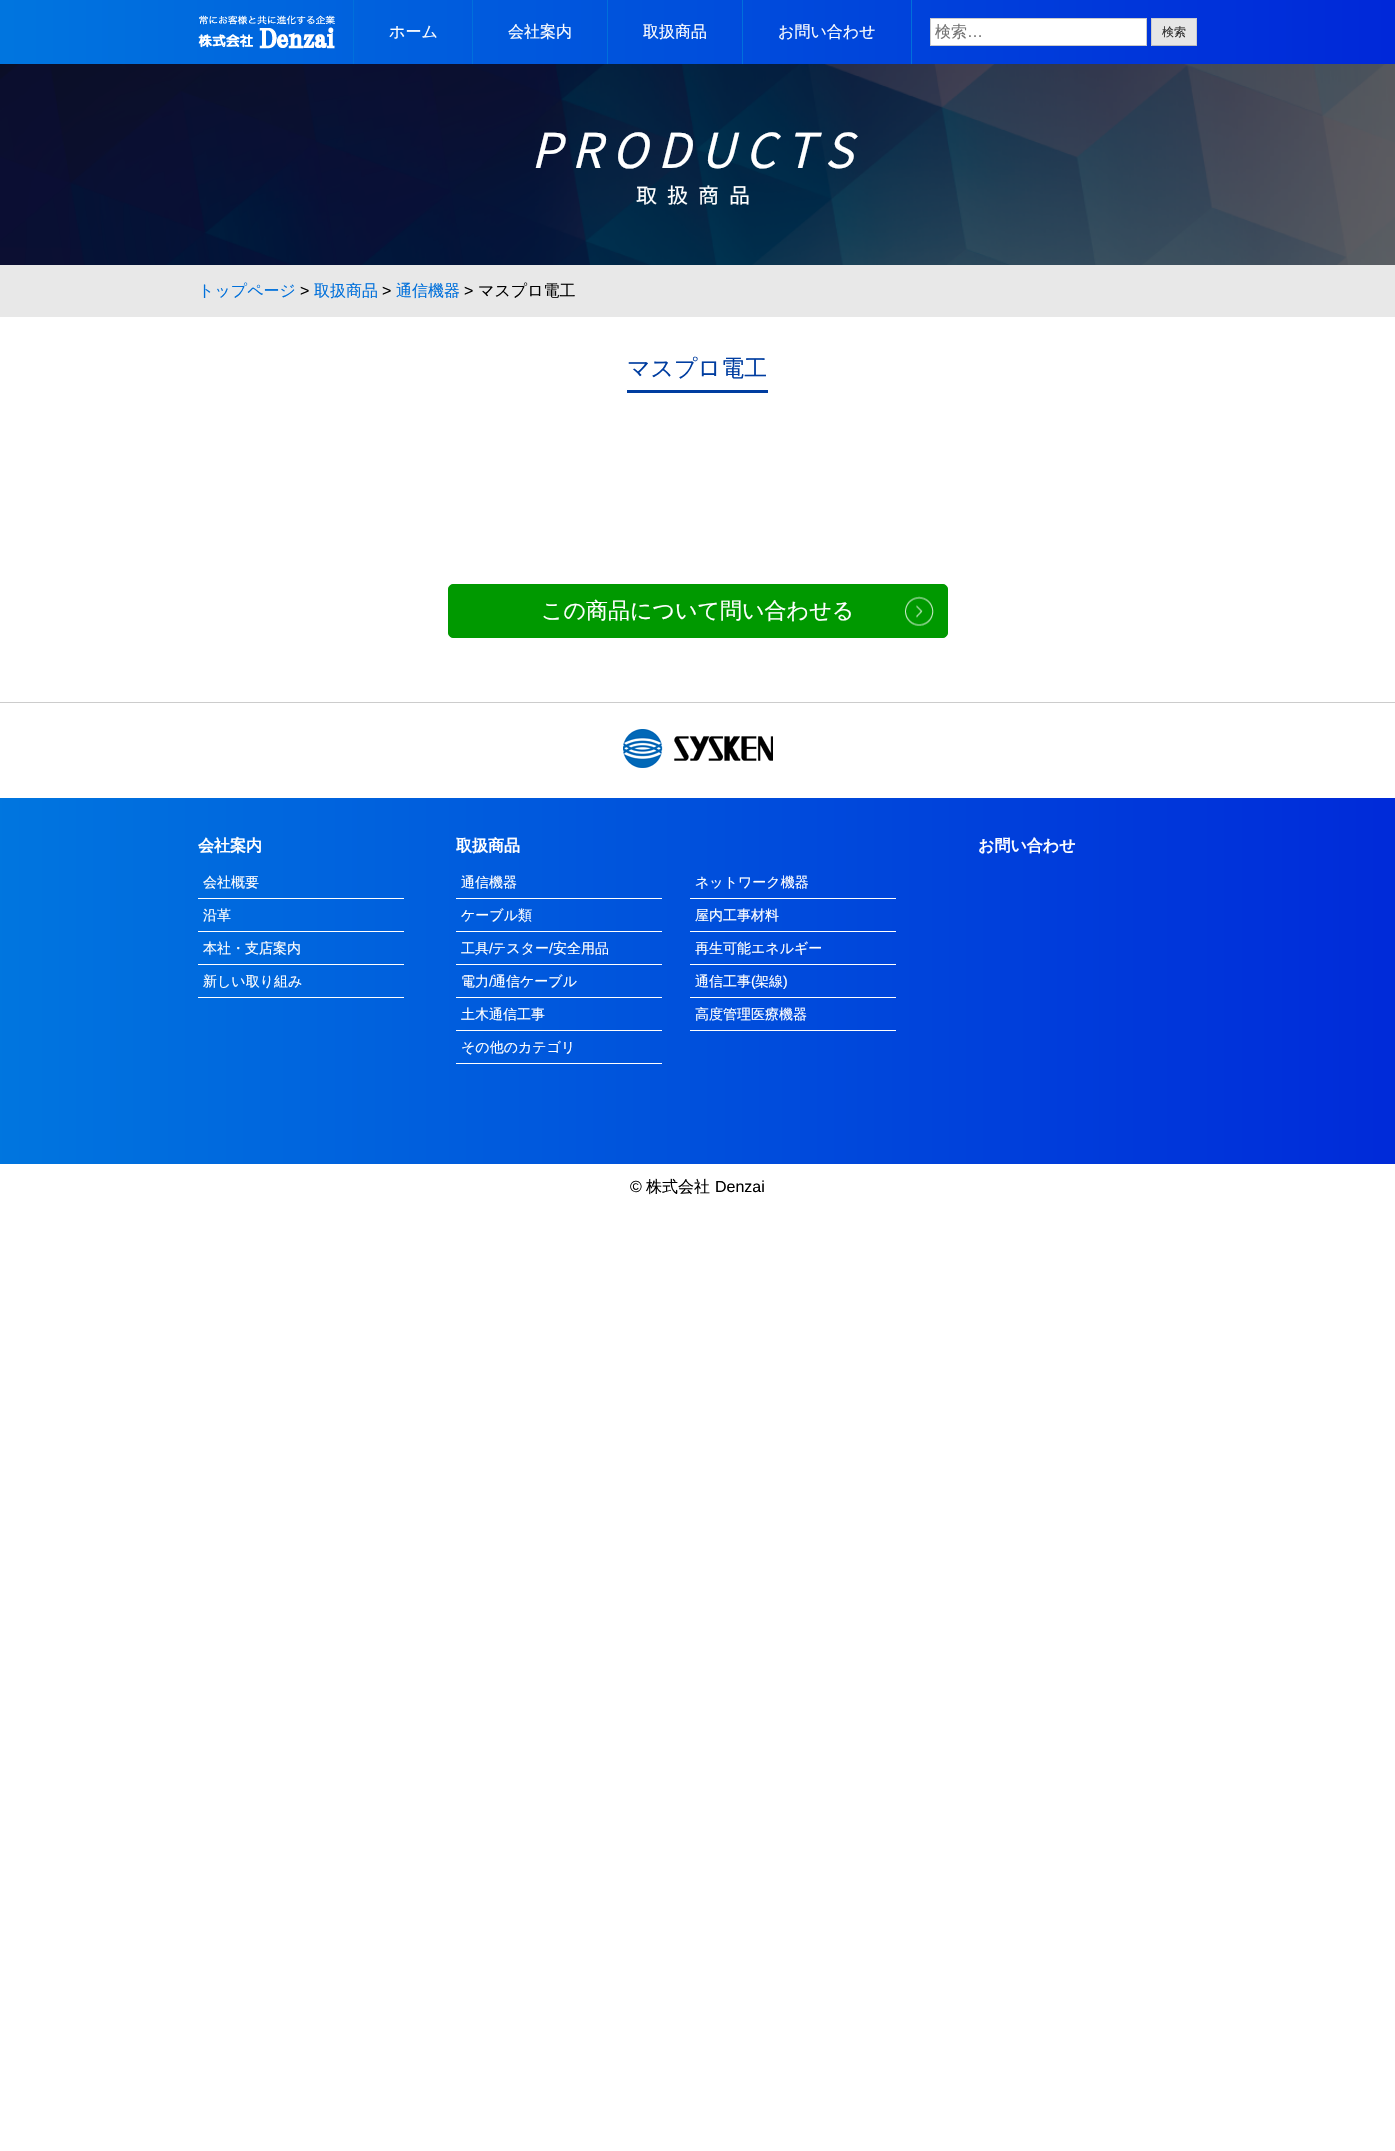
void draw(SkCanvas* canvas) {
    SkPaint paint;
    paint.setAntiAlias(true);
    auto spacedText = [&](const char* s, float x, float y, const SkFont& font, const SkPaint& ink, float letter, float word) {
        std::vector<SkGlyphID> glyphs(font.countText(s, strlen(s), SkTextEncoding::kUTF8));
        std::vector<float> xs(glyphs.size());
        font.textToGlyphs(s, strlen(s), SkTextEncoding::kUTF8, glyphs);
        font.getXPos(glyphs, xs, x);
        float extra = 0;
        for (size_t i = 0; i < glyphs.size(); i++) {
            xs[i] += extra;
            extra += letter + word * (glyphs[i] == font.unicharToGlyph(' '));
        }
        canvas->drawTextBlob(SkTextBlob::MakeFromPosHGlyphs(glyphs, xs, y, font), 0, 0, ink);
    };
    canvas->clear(0xFFFFFFFF);
    canvas->drawImageRect(SkImages::DeferredFromEncodedData(SkData::MakeFromFileName("img1.png")), SkRect::MakeXYWH(0, 0, 1395, 64), SkSamplingOptions());
    canvas->drawImageRect(SkImages::DeferredFromEncodedData(SkData::MakeFromFileName("img2.png")), SkRect::MakeXYWH(198, 15, 137, 34), SkSamplingOptions());
    paint.setColor(0xFF0070DB);
    canvas->drawRect(SkRect::MakeXYWH(353, 0, 1, 64), paint);
    SkFont font1(fontMgr->matchFamilyStyle("WenQuanYi Zen Hei", SkFontStyle(500, SkFontStyle::kNormal_Width, SkFontStyle::kUpright_Slant)), 16);
    font1.setSubpixel(true);
    paint.setColor(0xFFFFFFFF);
    canvas->drawString("ホーム", 389, 37, font1, paint);
    paint.setColor(0xFF0070DB);
    canvas->drawRect(SkRect::MakeXYWH(472, 0, 1, 64), paint);
    paint.setColor(0xFFFFFFFF);
    canvas->drawString("会社案内", 508, 37, font1, paint);
    paint.setColor(0xFF0070DB);
    canvas->drawRect(SkRect::MakeXYWH(607, 0, 1, 64), paint);
    paint.setColor(0xFFFFFFFF);
    canvas->drawString("取扱商品", 643, 37, font1, paint);
    paint.setColor(0xFF0070DB);
    canvas->drawRect(SkRect::MakeXYWH(911, 0, 1, 64), paint);
    canvas->drawRect(SkRect::MakeXYWH(742, 0, 1, 64), paint);
    paint.setColor(0xFFFFFFFF);
    canvas->drawString("お問い合わせ", 778, 37, font1, paint);
    canvas->drawRect(SkRect::MakeXYWH(930.5f, 18.5f, 216, 27), paint);
    paint.setStyle(SkPaint::kStroke_Style);
    paint.setStrokeWidth(1);
    paint.setColor(0xFFCBCBCB);
    canvas->drawRect(SkRect::MakeXYWH(930.5f, 18.5f, 216, 27), paint);
    paint.setStyle(SkPaint::kFill_Style);
    paint.setColor(0xFF757575);
    canvas->drawString("検索", 935, 37, font1, paint);
    SkFont font2(fontMgr->matchFamilyStyle("Liberation Sans", SkFontStyle::Normal()), 16);
    font2.setSubpixel(true);
    canvas->drawString("…", 967, 37, font2, paint);
    paint.setColor(0xFFE6E6E6);
    canvas->drawRect(SkRect::MakeXYWH(1152, 19, 44, 26), paint);
    paint.setColor(0xFFCCCCCC);
    canvas->drawRect(SkRect::MakeXYWH(1151, 18, 46, 1), paint);
    canvas->drawRect(SkRect::MakeXYWH(1196, 18, 1, 28), paint);
    paint.setColor(0xFFBBBBBB);
    canvas->drawRect(SkRect::MakeXYWH(1151, 45, 46, 1), paint);
    paint.setColor(0xFFCCCCCC);
    canvas->drawRect(SkRect::MakeXYWH(1151, 18, 1, 28), paint);
    SkFont font3(fontMgr->matchFamilyStyle("WenQuanYi Zen Hei", SkFontStyle(500, SkFontStyle::kNormal_Width, SkFontStyle::kUpright_Slant)), 12);
    font3.setSubpixel(true);
    paint.setColor(0xFF2E2E2E);
    canvas->drawString("検索", 1162, 36, font3, paint);
    canvas->drawImageRect(SkImages::DeferredFromEncodedData(SkData::MakeFromFileName("img3.png")), SkRect::MakeXYWH(0, 64, 1395, 201), SkSamplingOptions());
    SkFont font4(fontMgr->matchFamilyStyle("Noto Sans JP", SkFontStyle::Italic()), 48);
    font4.setSubpixel(true);
    paint.setColor(0xFFFFFFFF);
    spacedText("PRODUCTS", 531, 168, font4, paint, 10, 0);
    SkFont font5(fontMgr->matchFamilyStyle("Noto Sans JP", SkFontStyle::Normal()), 21);
    font5.setSubpixel(true);
    spacedText("取扱商品", 636, 203, font5, paint, 10, 0);
    paint.setColor(0xFFE8E8E8);
    canvas->drawRect(SkRect::MakeXYWH(0, 265, 1395, 52), paint);
    paint.setColor(0xFF0070DB);
    canvas->drawString("トップページ", 198, 296, font1, paint);
    paint.setColor(0xFF000000);
    canvas->drawString(">", 300, 296, font2, paint);
    paint.setColor(0xFF0070DB);
    canvas->drawString("取扱商品", 314, 296, font1, paint);
    paint.setColor(0xFF000000);
    canvas->drawString(">", 382, 296, font2, paint);
    paint.setColor(0xFF0070DB);
    canvas->drawString("通信機器", 396, 296, font1, paint);
    paint.setColor(0xFF000000);
    canvas->drawString(">", 464, 296, font2, paint);
    canvas->drawString("マスプロ電工", 478, 296, font1, paint);
    paint.setColor(0xFF003DA0);
    canvas->drawRect(SkRect::MakeXYWH(627, 390, 141, 3), paint);
    SkFont font6(fontMgr->matchFamilyStyle("WenQuanYi Zen Hei", SkFontStyle(500, SkFontStyle::kNormal_Width, SkFontStyle::kUpright_Slant)), 23);
    font6.setSubpixel(true);
    canvas->drawString("マスプロ電工", 627, 376, font6, paint);
    paint.setColor(0xFF009900);
    canvas->drawRoundRect(SkRect::MakeXYWH(448.5f, 584.5f, 499, 53), 4.5f, 4.5f, paint);
    paint.setStyle(SkPaint::kStroke_Style);
    canvas->drawRoundRect(SkRect::MakeXYWH(448.5f, 584.5f, 499, 53), 4.5f, 4.5f, paint);
    SkFont font7(fontMgr->matchFamilyStyle("WenQuanYi Zen Hei", SkFontStyle(500, SkFontStyle::kNormal_Width, SkFontStyle::kUpright_Slant)), 22);
    font7.setSubpixel(true);
    paint.setStyle(SkPaint::kFill_Style);
    paint.setColor(0xFFFFFFFF);
    canvas->drawString("この商品について問い合わせる", 541, 618, font7, paint);
    canvas->drawImageRect(SkImages::DeferredFromEncodedData(SkData::MakeFromFileName("img4.png")), SkRect::MakeXYWH(905, 596, 29, 30), SkSamplingOptions());
    paint.setColor(0xFFCCCCCC);
    canvas->drawRect(SkRect::MakeXYWH(0, 702, 1395, 1), paint);
    canvas->drawImageRect(SkImages::DeferredFromEncodedData(SkData::MakeFromFileName("img5.png")), SkRect::MakeXYWH(623, 729, 150, 39), SkSamplingOptions());
    canvas->drawImageRect(SkImages::DeferredFromEncodedData(SkData::MakeFromFileName("img6.png")), SkRect::MakeXYWH(0, 798, 1395, 366), SkSamplingOptions());
    SkFont font8(fontMgr->matchFamilyStyle("WenQuanYi Zen Hei", SkFontStyle::Bold()), 16);
    font8.setSubpixel(true);
    paint.setColor(0xFFFFFFFF);
    canvas->drawString("会社案内", 198, 851, font8, paint);
    canvas->drawRect(SkRect::MakeXYWH(198, 898, 206, 1), paint);
    SkFont font9(fontMgr->matchFamilyStyle("WenQuanYi Zen Hei", SkFontStyle(500, SkFontStyle::kNormal_Width, SkFontStyle::kUpright_Slant)), 14);
    font9.setSubpixel(true);
    canvas->drawString("会社概要", 203, 887, font9, paint);
    canvas->drawRect(SkRect::MakeXYWH(198, 931, 206, 1), paint);
    canvas->drawString("沿革", 203, 920, font9, paint);
    canvas->drawRect(SkRect::MakeXYWH(198, 964, 206, 1), paint);
    canvas->drawString("本社・支店案内", 203, 953, font9, paint);
    canvas->drawRect(SkRect::MakeXYWH(198, 997, 206, 1), paint);
    canvas->drawString("新しい取り組み", 203, 986, font9, paint);
    canvas->drawString("取扱商品", 456, 851, font8, paint);
    canvas->drawRect(SkRect::MakeXYWH(456, 898, 206, 1), paint);
    canvas->drawString("通信機器", 461, 887, font9, paint);
    canvas->drawRect(SkRect::MakeXYWH(456, 931, 206, 1), paint);
    canvas->drawString("ケーブル類", 461, 920, font9, paint);
    canvas->drawRect(SkRect::MakeXYWH(456, 964, 206, 1), paint);
    canvas->drawString("工具", 461, 953, font9, paint);
    SkFont font10(fontMgr->matchFamilyStyle("Liberation Sans", SkFontStyle::Normal()), 14);
    font10.setSubpixel(true);
    canvas->drawString("/", 489, 953, font10, paint);
    canvas->drawString("テスター", 492, 953, font9, paint);
    canvas->drawString("/", 549, 953, font10, paint);
    canvas->drawString("安全用品", 553, 953, font9, paint);
    canvas->drawRect(SkRect::MakeXYWH(456, 997, 206, 1), paint);
    canvas->drawString("電力", 461, 986, font9, paint);
    canvas->drawString("/", 489, 986, font10, paint);
    canvas->drawString("通信ケーブル", 492, 986, font9, paint);
    canvas->drawRect(SkRect::MakeXYWH(456, 1030, 206, 1), paint);
    canvas->drawString("土木通信工事", 461, 1019, font9, paint);
    canvas->drawRect(SkRect::MakeXYWH(456, 1063, 206, 1), paint);
    canvas->drawString("その他のカテゴリ", 461, 1052, font9, paint);
    canvas->drawRect(SkRect::MakeXYWH(690, 898, 206, 1), paint);
    canvas->drawString("ネットワーク機器", 695, 887, font9, paint);
    canvas->drawRect(SkRect::MakeXYWH(690, 931, 206, 1), paint);
    canvas->drawString("屋内工事材料", 695, 920, font9, paint);
    canvas->drawRect(SkRect::MakeXYWH(690, 964, 206, 1), paint);
    canvas->drawString("再生可能エネルギー", 695, 953, font9, paint);
    canvas->drawRect(SkRect::MakeXYWH(690, 997, 206, 1), paint);
    canvas->drawString("通信工事", 695, 986, font9, paint);
    canvas->drawString("(", 751, 986, font10, paint);
    canvas->drawString("架線", 755, 986, font9, paint);
    canvas->drawString(")", 783, 986, font10, paint);
    canvas->drawRect(SkRect::MakeXYWH(690, 1030, 206, 1), paint);
    canvas->drawString("高度管理医療機器", 695, 1019, font9, paint);
    canvas->drawString("お問い合わせ", 978, 851, font8, paint);
    paint.setColor(0xFF000000);
    canvas->drawString("©", 630, 1192, font2, paint);
    canvas->drawString("株式会社", 646, 1192, font1, paint);
    canvas->drawString("Denzai", 715, 1192, font2, paint);
}
